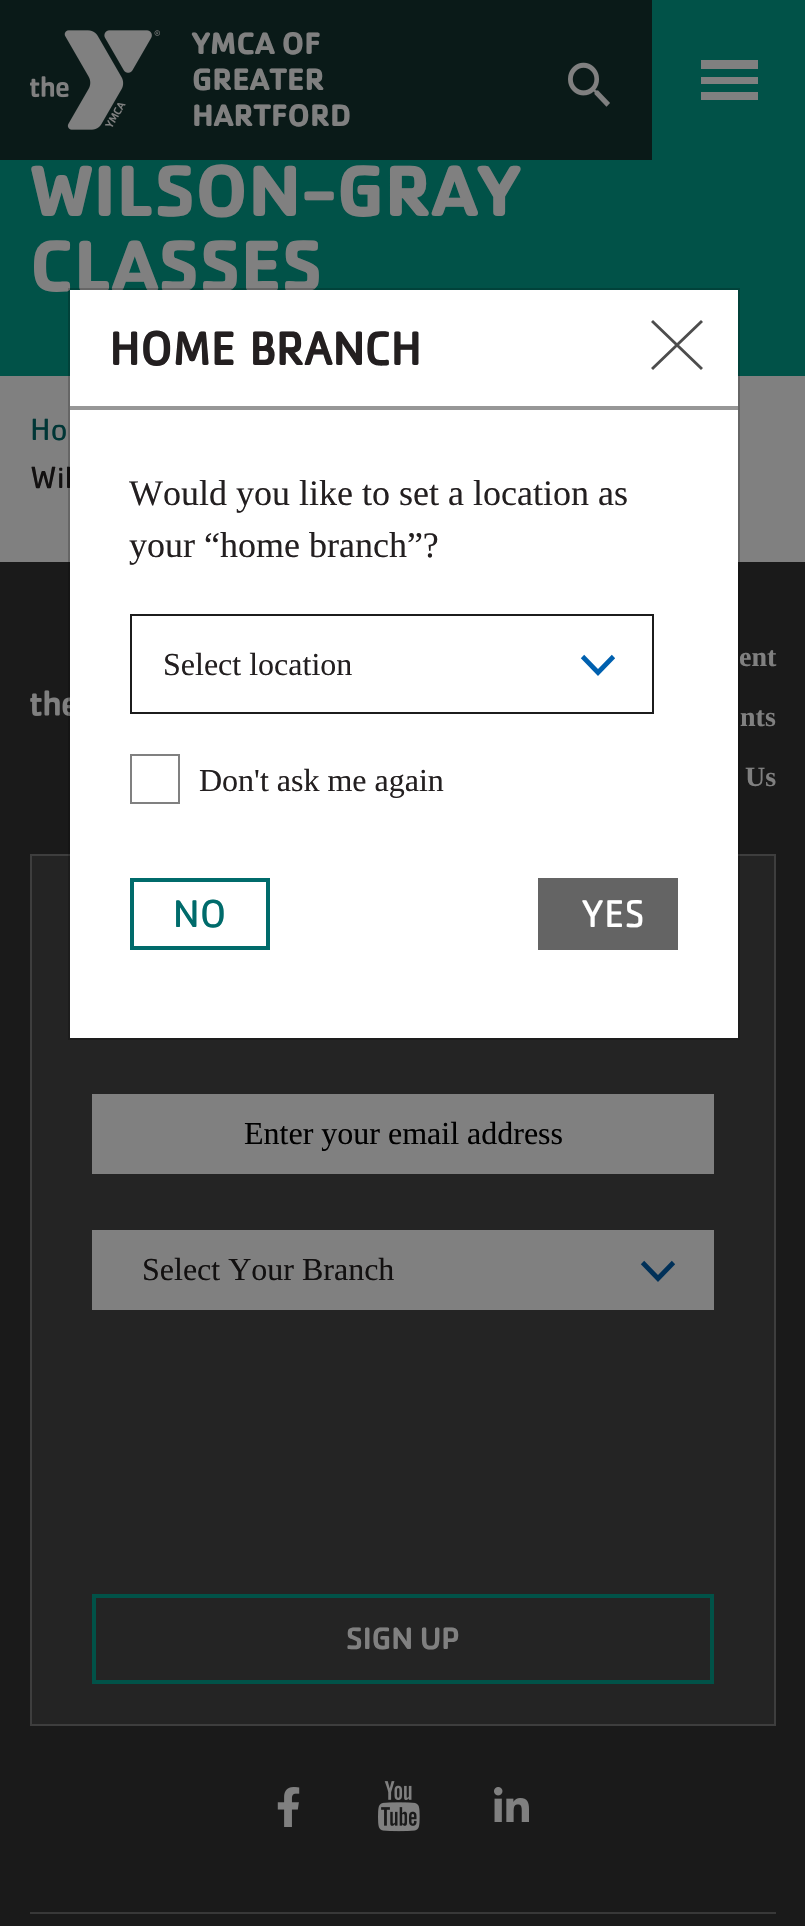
void draw(SkCanvas* canvas) {
    SkPaint paint;
    paint.setAntiAlias(true);
    canvas->clear(0xFF808080);
    paint.setColor(0xFF0A1A18);
    canvas->drawRect(SkRect::MakeXYWH(0, 0, 652, 160), paint);
    canvas->drawImageRect(SkImages::DeferredFromEncodedData(SkData::MakeFromFileName("img1.png")), SkRect::MakeXYWH(30, 30, 130, 100), SkSamplingOptions());
    SkFont font1(fontMgr->matchFamilyStyle("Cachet", SkFontStyle::Bold()), 32);
    font1.setSubpixel(true);
    paint.setColor(0xFF808080);
    canvas->drawString("YMCA OF", 192, 54, font1, paint);
    canvas->drawString("GREATER", 192, 90, font1, paint);
    canvas->drawString("HARTFORD", 192, 126, font1, paint);
    canvas->drawImageRect(SkImages::DeferredFromEncodedData(SkData::MakeFromFileName("img2.png")), SkRect::MakeXYWH(568, 62, 42, 45), SkSamplingOptions());
    paint.setColor(0xFF015248);
    canvas->drawRect(SkRect::MakeXYWH(652, 0, 153, 160), paint);
    paint.setColor(0xFF808080);
    canvas->drawPath(SkPathBuilder().moveTo(701, 69).lineTo(701, 60).lineTo(758, 60).lineTo(758, 69).close().moveTo(701, 84).lineTo(701, 77).lineTo(758, 77).lineTo(758, 84).close().moveTo(701, 100).lineTo(701, 92).lineTo(758, 92).lineTo(758, 100).close().detach(), paint);
    paint.setColor(0xFF015248);
    canvas->drawRect(SkRect::MakeXYWH(0, 160, 805, 216), paint);
    SkFont font2(fontMgr->matchFamilyStyle("Cachet", SkFontStyle::Bold()), 75.25f);
    font2.setSubpixel(true);
    paint.setColor(0xFF808080);
    canvas->drawString("WILSON-GRAY", 30, 216, font2, paint);
    canvas->drawString("CLASSES", 30, 291, font2, paint);
    SkFont font3(fontMgr->matchFamilyStyle("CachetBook", SkFontStyle::Normal()), 32);
    font3.setSubpixel(true);
    paint.setColor(0xFF003636);
    canvas->drawString("Ho", 30, 440, font3, paint);
    paint.setColor(0xFF121010);
    canvas->drawString("Wil", 30, 488, font3, paint);
    paint.setColor(0xFF1A1A1A);
    canvas->drawRect(SkRect::MakeXYWH(0, 562, 805, 1364), paint);
    canvas->drawImageRect(SkImages::DeferredFromEncodedData(SkData::MakeFromFileName("img3.png")), SkRect::MakeXYWH(30, 690, 40, 26), SkSamplingOptions());
    SkFont font4(fontMgr->matchFamilyStyle("Liberation Serif", SkFontStyle::Bold()), 28);
    font4.setSubpixel(true);
    paint.setColor(0xFF808080);
    canvas->drawString("ent", 739, 666, font4, paint);
    canvas->drawString("nts", 740, 726, font4, paint);
    canvas->drawString("Us", 745, 786, font4, paint);
    paint.setColor(0xFF242424);
    canvas->drawRect(SkRect::MakeXYWH(31, 855, 744, 870), paint);
    paint.setStyle(SkPaint::kStroke_Style);
    paint.setStrokeWidth(2);
    paint.setColor(0xFF3E3E3E);
    canvas->drawRect(SkRect::MakeXYWH(31, 855, 744, 870), paint);
    paint.setStyle(SkPaint::kFill_Style);
    paint.setColor(0xFF808080);
    canvas->drawRect(SkRect::MakeXYWH(93, 1095, 620, 78), paint);
    paint.setStyle(SkPaint::kStroke_Style);
    canvas->drawRect(SkRect::MakeXYWH(93, 1095, 620, 78), paint);
    SkFont font5(fontMgr->matchFamilyStyle("Liberation Serif", SkFontStyle::Normal()), 32);
    font5.setSubpixel(true);
    paint.setStyle(SkPaint::kFill_Style);
    paint.setColor(0xFF000000);
    canvas->drawString("Enter your email address", 244, 1144, font5, paint);
    paint.setColor(0xFF808080);
    canvas->drawRect(SkRect::MakeXYWH(94, 1232, 618, 76), paint);
    paint.setStyle(SkPaint::kStroke_Style);
    paint.setStrokeWidth(4.7f);
    paint.setColor(0xFF003058);
    canvas->drawPath(SkPathBuilder().moveTo(673.5f, 1262.5f).lineTo(658, 1278.5f).lineTo(642.5f, 1262.5f).detach(), paint);
    paint.setStrokeWidth(2);
    paint.setColor(0xFF808080);
    canvas->drawRect(SkRect::MakeXYWH(93, 1231, 620, 78), paint);
    paint.setStyle(SkPaint::kFill_Style);
    paint.setColor(0xFF121010);
    canvas->drawString("Select Your Branch", 142, 1280, font5, paint);
    paint.setStyle(SkPaint::kStroke_Style);
    paint.setStrokeWidth(4);
    paint.setColor(0xFF015248);
    canvas->drawRect(SkRect::MakeXYWH(94, 1596, 618, 86), paint);
    SkFont font6(fontMgr->matchFamilyStyle("Cachet", SkFontStyle(500, SkFontStyle::kNormal_Width, SkFontStyle::kUpright_Slant)), 32);
    font6.setSubpixel(true);
    paint.setStyle(SkPaint::kFill_Style);
    paint.setColor(0xFF808080);
    canvas->drawString("SIGN UP", 346, 1649, font6, paint);
    paint.setColor(0xFF383838);
    canvas->drawRect(SkRect::MakeXYWH(30, 1912, 746, 2), paint);
    canvas->drawImageRect(SkImages::DeferredFromEncodedData(SkData::MakeFromFileName("img4.png")), SkRect::MakeXYWH(277, 1787, 23, 40), SkSamplingOptions());
    canvas->drawImageRect(SkImages::DeferredFromEncodedData(SkData::MakeFromFileName("img5.png")), SkRect::MakeXYWH(378, 1781, 42, 51), SkSamplingOptions());
    canvas->drawImageRect(SkImages::DeferredFromEncodedData(SkData::MakeFromFileName("img6.png")), SkRect::MakeXYWH(494, 1787, 35, 35), SkSamplingOptions());
    paint.setColor(0xFFFFFFFF);
    canvas->drawRect(SkRect::MakeXYWH(70, 290, 668, 748), paint);
    paint.setStyle(SkPaint::kStroke_Style);
    paint.setStrokeWidth(2);
    paint.setColor(0x33000000);
    canvas->drawRect(SkRect::MakeXYWH(69, 289, 670, 750), paint);
    paint.setStyle(SkPaint::kFill_Style);
    paint.setColor(0xFF979797);
    canvas->drawRect(SkRect::MakeXYWH(70, 406, 668, 4), paint);
    SkFont font7(fontMgr->matchFamilyStyle("CachetBook", SkFontStyle::Bold()), 48);
    font7.setSubpixel(true);
    paint.setColor(0xFF231F20);
    canvas->drawString("HOME BRANCH", 109, 365, font7, paint);
    paint.setColor(0xFF4D4D4D);
    canvas->drawPath(SkPathBuilder().moveTo(653, 370).lineTo(651, 368).lineTo(701, 320).lineTo(703, 322).close().moveTo(651, 322).lineTo(653, 320).lineTo(703, 368).lineTo(701, 370).close().detach(), paint);
    SkFont font8(fontMgr->matchFamilyStyle("Liberation Serif", SkFontStyle::Normal()), 36);
    font8.setSubpixel(true);
    paint.setColor(0xFF231F20);
    canvas->drawString("Would you like to set a location as", 129, 505, font8, paint);
    canvas->drawString("your “home branch”?", 129, 557, font8, paint);
    paint.setStyle(SkPaint::kStroke_Style);
    paint.setStrokeWidth(4.7f);
    paint.setColor(0xFF0060AF);
    canvas->drawPath(SkPathBuilder().moveTo(613.5f, 656.5f).lineTo(598, 672.5f).lineTo(582.5f, 656.5f).detach(), paint);
    paint.setStrokeWidth(2);
    paint.setColor(0xFF1C1C1C);
    canvas->drawRect(SkRect::MakeXYWH(131, 615, 522, 98), paint);
    paint.setStyle(SkPaint::kFill_Style);
    paint.setColor(0xFF231F20);
    canvas->drawString("Select location", 163, 675, font5, paint);
    paint.setStyle(SkPaint::kStroke_Style);
    paint.setColor(0xFF808080);
    canvas->drawRect(SkRect::MakeXYWH(131, 755, 48, 48), paint);
    paint.setStyle(SkPaint::kFill_Style);
    paint.setColor(0xFF231F20);
    canvas->drawString("Don't ask me again", 199, 791, font5, paint);
    paint.setStyle(SkPaint::kStroke_Style);
    paint.setStrokeWidth(4);
    paint.setColor(0xFF006B6B);
    canvas->drawRect(SkRect::MakeXYWH(132, 880, 136, 68), paint);
    SkFont font9(fontMgr->matchFamilyStyle("CachetBook", SkFontStyle::Normal()), 40);
    font9.setSubpixel(true);
    paint.setStyle(SkPaint::kFill_Style);
    canvas->drawString("NO", 173, 927, font9, paint);
    paint.setColor(0xFF646464);
    canvas->drawRect(SkRect::MakeXYWH(538, 878, 140, 72), paint);
    paint.setColor(0xFFFFFFFF);
    canvas->drawString("YES", 581, 927, font9, paint);
}
